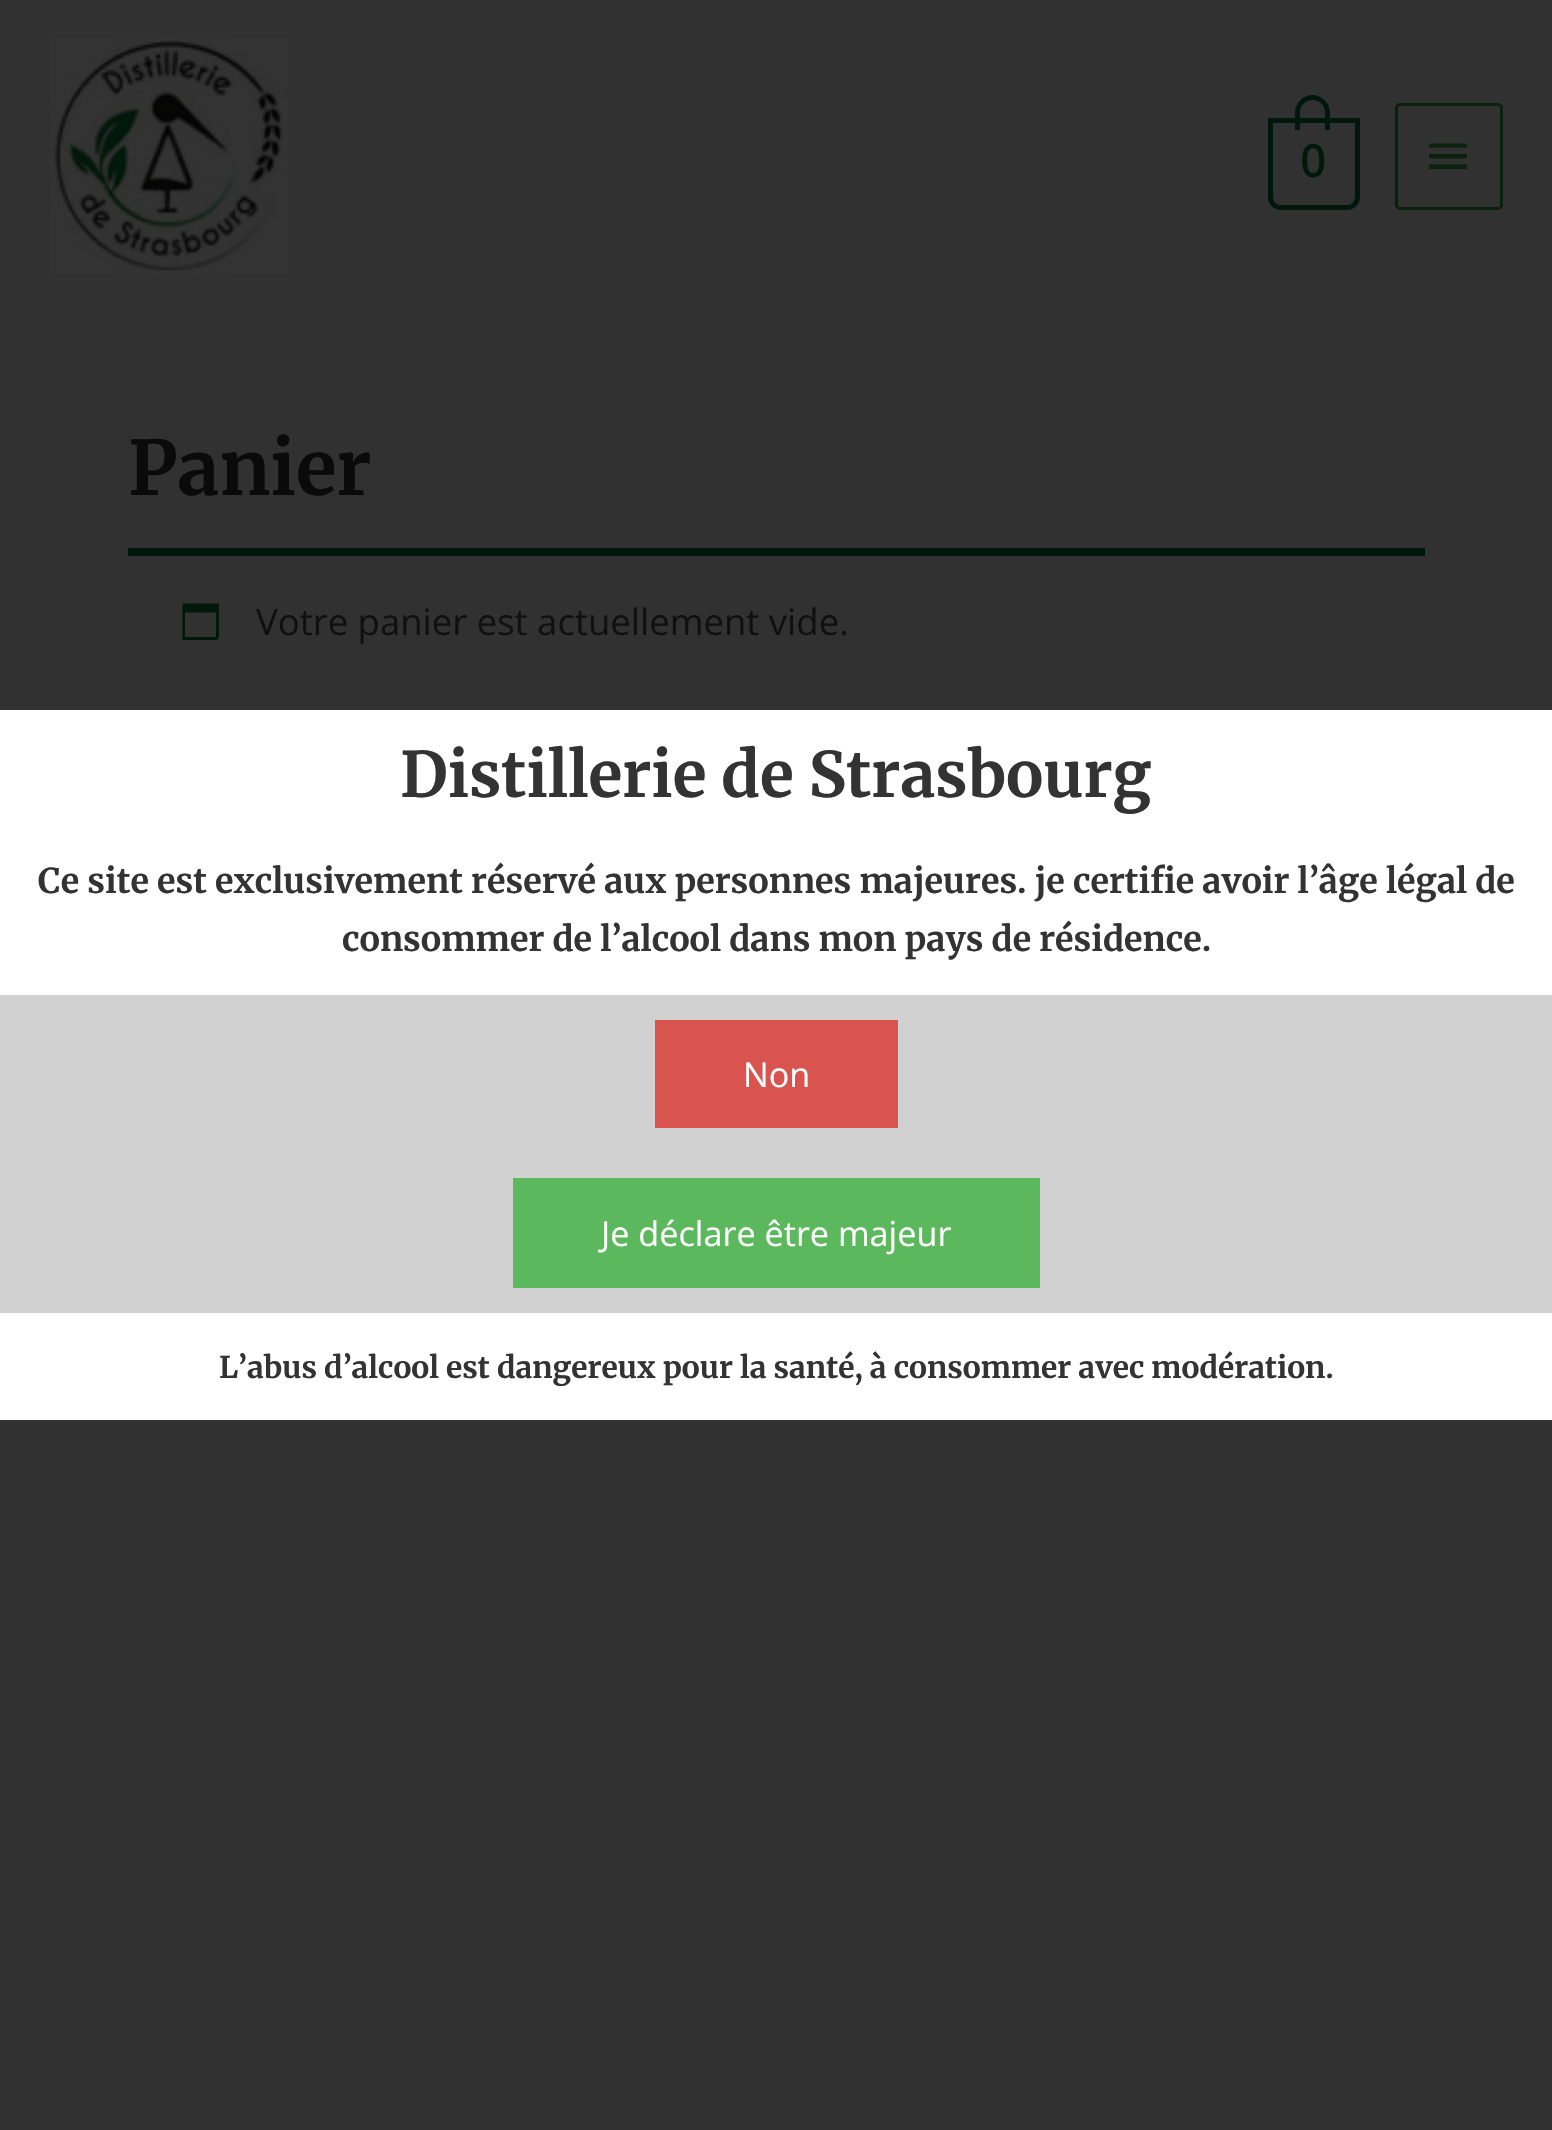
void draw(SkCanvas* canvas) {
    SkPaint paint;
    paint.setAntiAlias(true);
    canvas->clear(0xFF313131);
    canvas->drawImageRect(SkImages::DeferredFromEncodedData(SkData::MakeFromFileName("img1.png")), SkRect::MakeXYWH(50, 37, 238, 238), SkSamplingOptions());
    paint.setStyle(SkPaint::kStroke_Style);
    paint.setStrokeWidth(5);
    paint.setColor(0xFF00180C);
    canvas->drawPath(SkPathBuilder().moveTo(1270.5f, 120.5f).lineTo(1357.5f, 120.5f).lineTo(1357.5f, 197).cubicTo(1357.5f, 203, 1353, 207.5f, 1347, 207.5f).lineTo(1281, 207.5f).cubicTo(1275, 207.5f, 1270.5f, 203, 1270.5f, 197).close().detach(), paint);
    paint.setStyle(SkPaint::kFill_Style);
    canvas->drawPath(SkPathBuilder(SkPathFillType::kEvenOdd).moveTo(1312.5f, 95).cubicTo(1322, 95, 1330, 103, 1330, 112.5f).lineTo(1330, 130).lineTo(1295, 130).lineTo(1295, 112.5f).cubicTo(1295, 103, 1303, 95, 1312.5f, 95).close().moveTo(1312.5f, 100).cubicTo(1319.5f, 100, 1325, 105.5f, 1325, 112.5f).lineTo(1325, 130).lineTo(1300, 130).lineTo(1300, 112.5f).cubicTo(1300, 105.5f, 1305.5f, 100, 1312.5f, 100).close().detach(), paint);
    SkFont font1(fontMgr->matchFamilyStyle("Open Sans", SkFontStyle::Bold()), 44);
    font1.setSubpixel(true);
    canvas->drawString("0", 1300, 177, font1, paint);
    paint.setStyle(SkPaint::kStroke_Style);
    paint.setStrokeWidth(3);
    paint.setColor(0xFF0A210D);
    canvas->drawRoundRect(SkRect::MakeXYWH(1396.5f, 104.5f, 105, 104), 3.5f, 3.5f, paint);
    paint.setStyle(SkPaint::kFill_Style);
    canvas->drawPath(SkPathBuilder().moveTo(1429, 143.5f).lineTo(1467, 143.5f).lineTo(1467, 147.5f).lineTo(1429, 147.5f).close().moveTo(1429, 158.5f).lineTo(1429, 154).lineTo(1467, 154).lineTo(1467, 158.5f).close().moveTo(1429, 169).lineTo(1429, 164.5f).lineTo(1467, 164.5f).lineTo(1467, 169).close().detach(), paint);
    SkFont font2(fontMgr->matchFamilyStyle("Merriweather", SkFontStyle(300, SkFontStyle::kNormal_Width, SkFontStyle::kUpright_Slant)), 75);
    font2.setSubpixel(true);
    paint.setColor(0xFF0A0A0A);
    canvas->drawString("Panier", 128, 495, font2, paint);
    paint.setColor(0xFF00180C);
    canvas->drawRect(SkRect::MakeXYWH(128, 548, 1297, 8), paint);
    canvas->drawPath(SkPathBuilder().moveTo(216, 612.5f).lineTo(185, 612.5f).lineTo(185, 637).lineTo(216, 637).close().moveTo(219, 603.5f).lineTo(219, 631).cubicTo(219, 640.5f, 219.5f, 640, 210.5f, 640).lineTo(182.5f, 640).lineTo(182.5f, 603.5f).close().detach(), paint);
    SkFont font3(fontMgr->matchFamilyStyle("Open Sans", SkFontStyle::Normal()), 36.5f);
    font3.setSubpixel(true);
    paint.setColor(0xFF101010);
    canvas->drawString("Votre panier est actuellement vide.", 256, 635, font3, paint);
    paint.setColor(0xFFFFFFFF);
    canvas->drawRect(SkRect::MakeXYWH(0, 710, 1552, 710), paint);
    SkFont font4(fontMgr->matchFamilyStyle("Merriweather", SkFontStyle(300, SkFontStyle::kNormal_Width, SkFontStyle::kUpright_Slant)), 62.5f);
    font4.setSubpixel(true);
    paint.setColor(0xFF333333);
    canvas->drawString("Distillerie de Strasbourg", 400, 797, font4, paint);
    SkFont font5(fontMgr->matchFamilyStyle("Merriweather", SkFontStyle(300, SkFontStyle::kNormal_Width, SkFontStyle::kUpright_Slant)), 34.2f);
    font5.setSubpixel(true);
    canvas->drawString("Ce site est exclusivement réservé aux personnes majeures. je certifie avoir l’âge légal de", 38, 893, font5, paint);
    canvas->drawString("consommer de l’alcool dans mon pays de résidence.", 342, 951, font5, paint);
    paint.setColor(0xFFD1D1D1);
    canvas->drawRect(SkRect::MakeXYWH(0, 995, 1552, 318), paint);
    paint.setColor(0xFFD9534F);
    canvas->drawRect(SkRect::MakeXYWH(655, 1020, 243, 108), paint);
    SkFont font6(fontMgr->matchFamilyStyle("Open Sans", SkFontStyle::Normal()), 34.2f);
    font6.setSubpixel(true);
    paint.setColor(0xFFFFFFFF);
    canvas->drawString("Non", 743, 1087, font6, paint);
    paint.setColor(0xFF5CB85C);
    canvas->drawRect(SkRect::MakeXYWH(513, 1178, 527, 110), paint);
    paint.setColor(0xFFFFFFFF);
    canvas->drawString("Je déclare être majeur", 601, 1246, font6, paint);
    SkFont font7(fontMgr->matchFamilyStyle("Merriweather", SkFontStyle(300, SkFontStyle::kNormal_Width, SkFontStyle::kUpright_Slant)), 30);
    font7.setSubpixel(true);
    paint.setColor(0xFF333333);
    canvas->drawString("L’abus d’alcool est dangereux pour la santé, à consommer avec modération.", 219, 1378, font7, paint);
}
